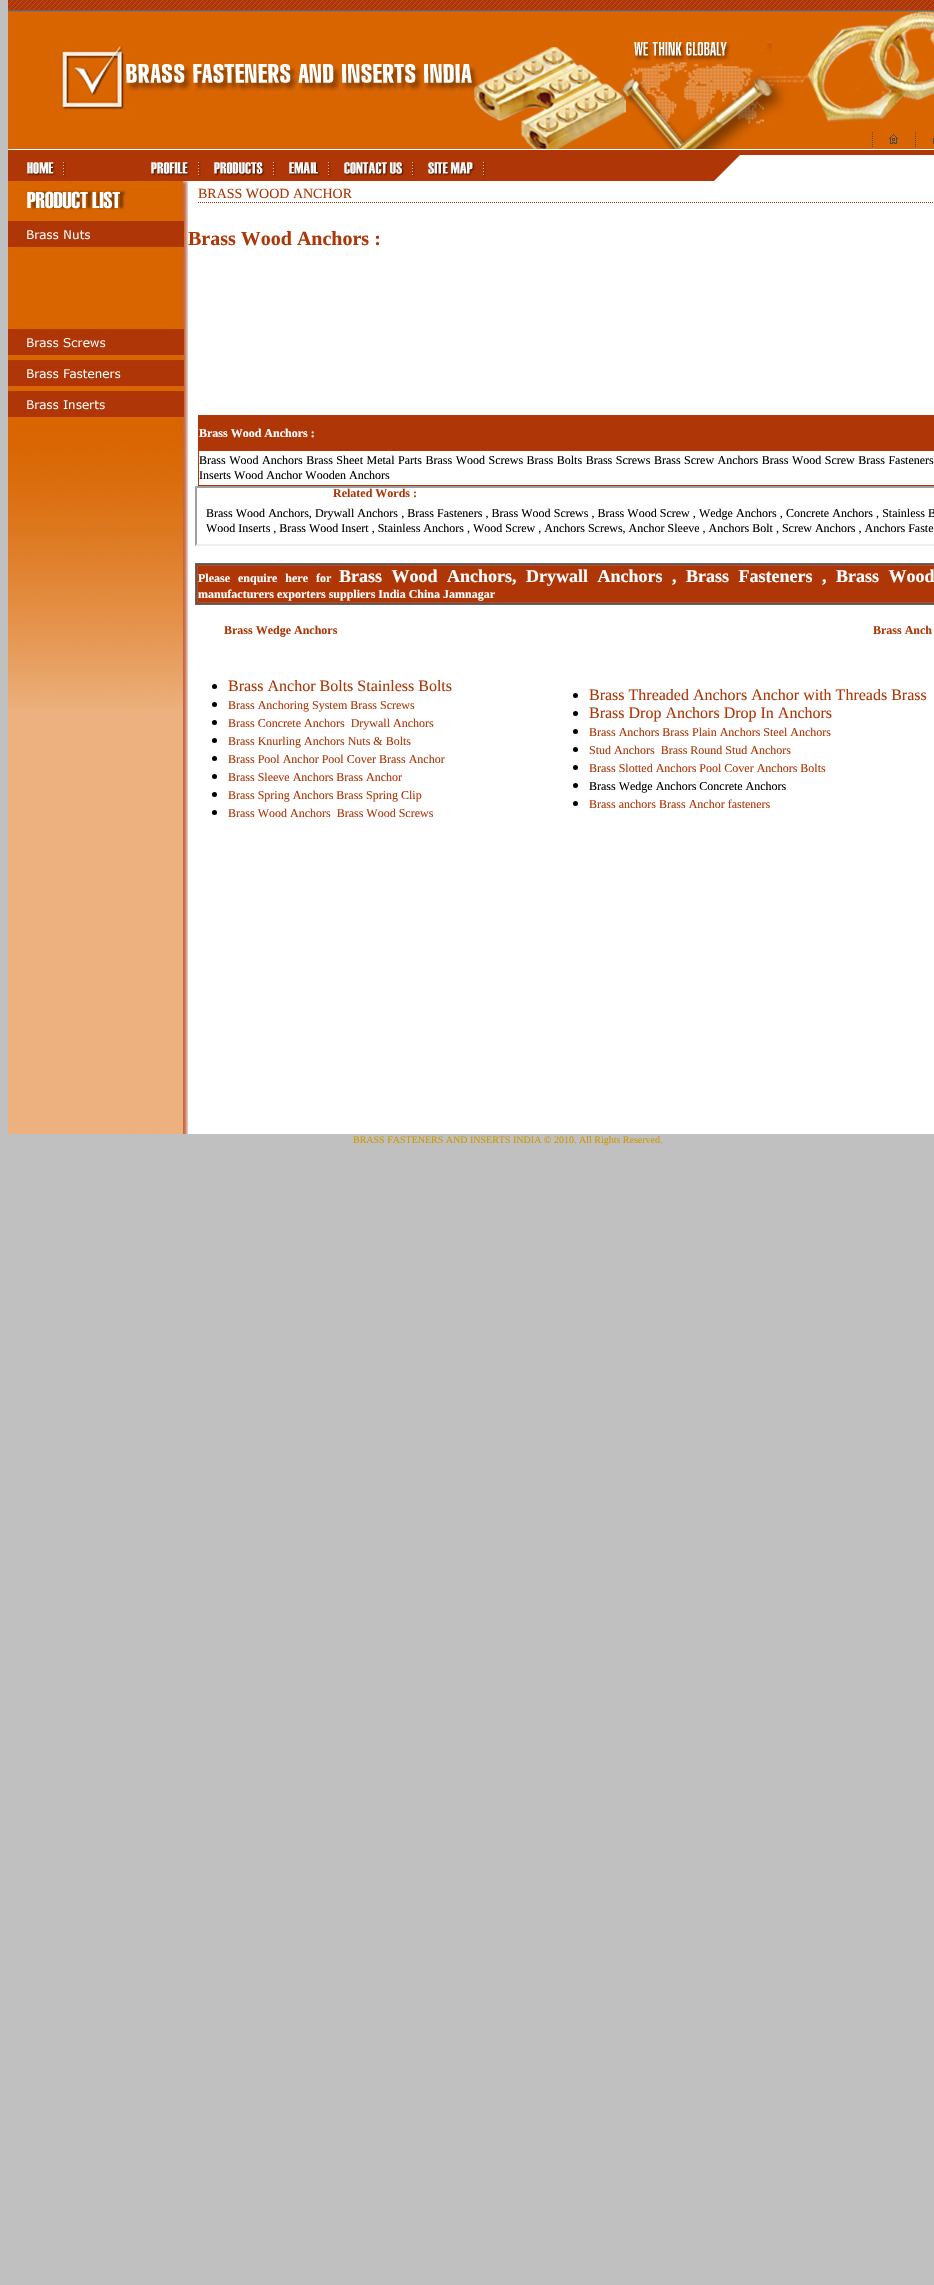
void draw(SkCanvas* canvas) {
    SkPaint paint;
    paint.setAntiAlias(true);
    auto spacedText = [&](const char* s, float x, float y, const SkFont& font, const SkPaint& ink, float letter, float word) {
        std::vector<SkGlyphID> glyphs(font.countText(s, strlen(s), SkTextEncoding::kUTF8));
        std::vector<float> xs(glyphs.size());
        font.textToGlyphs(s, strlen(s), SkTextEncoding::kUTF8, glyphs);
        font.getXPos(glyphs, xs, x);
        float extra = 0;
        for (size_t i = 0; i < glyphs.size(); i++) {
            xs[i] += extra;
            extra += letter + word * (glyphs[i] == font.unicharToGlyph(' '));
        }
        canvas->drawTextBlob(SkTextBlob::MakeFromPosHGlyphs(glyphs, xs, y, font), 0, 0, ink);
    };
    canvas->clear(0xFFC0C0C0);
    paint.setColor(0xFFFFFFFF);
    canvas->drawRect(SkRect::MakeXYWH(8, 149, 926, 32), paint);
    canvas->drawImageRect(SkImages::DeferredFromEncodedData(SkData::MakeFromFileName("img1.png")), SkRect::MakeXYWH(8, 0, 926, 149), SkSamplingOptions());
    canvas->drawImageRect(SkImages::DeferredFromEncodedData(SkData::MakeFromFileName("img2.png")), SkRect::MakeXYWH(8, 150, 926, 31), SkSamplingOptions());
    canvas->drawImageRect(SkImages::DeferredFromEncodedData(SkData::MakeFromFileName("img3.png")), SkRect::MakeXYWH(27, 161, 39, 16), SkSamplingOptions());
    canvas->drawImageRect(SkImages::DeferredFromEncodedData(SkData::MakeFromFileName("img4.png")), SkRect::MakeXYWH(145, 161, 56, 16), SkSamplingOptions());
    canvas->drawImageRect(SkImages::DeferredFromEncodedData(SkData::MakeFromFileName("img5.png")), SkRect::MakeXYWH(214, 161, 62, 16), SkSamplingOptions());
    canvas->drawImageRect(SkImages::DeferredFromEncodedData(SkData::MakeFromFileName("img6.png")), SkRect::MakeXYWH(280, 161, 51, 16), SkSamplingOptions());
    canvas->drawImageRect(SkImages::DeferredFromEncodedData(SkData::MakeFromFileName("img7.png")), SkRect::MakeXYWH(343, 161, 72, 16), SkSamplingOptions());
    canvas->drawImageRect(SkImages::DeferredFromEncodedData(SkData::MakeFromFileName("img8.png")), SkRect::MakeXYWH(427, 161, 59, 16), SkSamplingOptions());
    canvas->drawRect(SkRect::MakeXYWH(188, 181, 746, 953), paint);
    canvas->drawImageRect(SkImages::DeferredFromEncodedData(SkData::MakeFromFileName("img9.png")), SkRect::MakeXYWH(8, 708, 180, 426), SkSamplingOptions());
    canvas->drawImageRect(SkImages::DeferredFromEncodedData(SkData::MakeFromFileName("img10.png")), SkRect::MakeXYWH(8, 181, 180, 527), SkSamplingOptions());
    canvas->drawImageRect(SkImages::DeferredFromEncodedData(SkData::MakeFromFileName("img11.png")), SkRect::MakeXYWH(24, 190, 103, 20), SkSamplingOptions());
    canvas->drawImageRect(SkImages::DeferredFromEncodedData(SkData::MakeFromFileName("img12.png")), SkRect::MakeXYWH(8, 221, 176, 26), SkSamplingOptions());
    canvas->drawImageRect(SkImages::DeferredFromEncodedData(SkData::MakeFromFileName("img13.png")), SkRect::MakeXYWH(8, 329, 176, 26), SkSamplingOptions());
    canvas->drawImageRect(SkImages::DeferredFromEncodedData(SkData::MakeFromFileName("img14.png")), SkRect::MakeXYWH(8, 360, 176, 26), SkSamplingOptions());
    canvas->drawImageRect(SkImages::DeferredFromEncodedData(SkData::MakeFromFileName("img15.png")), SkRect::MakeXYWH(8, 391, 176, 26), SkSamplingOptions());
    paint.setStyle(SkPaint::kStroke_Style);
    paint.setStrokeWidth(1);
    paint.setColor(0xFFAF3607);
    paint.setPathEffect(SkDashPathEffect::Make({{1, 1}}, 0));
    canvas->drawPath(SkPathBuilder().moveTo(198, 202.5f).lineTo(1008, 202.5f).detach(), paint);
    paint.setPathEffect(nullptr);
    SkFont font1(fontMgr->matchFamilyStyle("Liberation Serif", SkFontStyle::Normal()), 14);
    font1.setSubpixel(true);
    paint.setStyle(SkPaint::kFill_Style);
    canvas->drawString("BRASS WOOD ANCHOR", 198, 198, font1, paint);
    SkFont font2(fontMgr->matchFamilyStyle("Liberation Serif", SkFontStyle::Bold()), 20);
    font2.setSubpixel(true);
    canvas->drawString("Brass Wood Anchors :", 188, 245, font2, paint);
    canvas->drawRect(SkRect::MakeXYWH(198, 415, 736, 1), paint);
    canvas->drawRect(SkRect::MakeXYWH(198, 485, 736, 1), paint);
    canvas->drawRect(SkRect::MakeXYWH(198, 415, 1, 71), paint);
    canvas->drawRect(SkRect::MakeXYWH(199, 416, 735, 35), paint);
    SkFont font3(fontMgr->matchFamilyStyle("Liberation Serif", SkFontStyle::Bold()), 12);
    font3.setSubpixel(true);
    paint.setColor(0xFFFFFFFF);
    canvas->drawString("Brass Wood Anchors :", 199, 437, font3, paint);
    SkFont font4(fontMgr->matchFamilyStyle("Liberation Serif", SkFontStyle::Normal()), 12);
    font4.setSubpixel(true);
    paint.setColor(0xFF000000);
    spacedText("Brass Wood Anchors Brass Sheet Metal Parts Brass Wood Screws Brass Bolts Brass Screws Brass Screw Anchors Brass Wood Screw Brass Fasteners", 199, 464, font4, paint, 0, 0.5f);
    canvas->drawString("Inserts Wood Anchor Wooden Anchors", 199, 479, font4, paint);
    paint.setColor(0xFF9F9F9F);
    canvas->drawPath(SkPathBuilder().moveTo(195, 486).lineTo(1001, 486).lineTo(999, 488).lineTo(197, 488).close().detach(), paint);
    paint.setColor(0xFFEFEFEF);
    canvas->drawPath(SkPathBuilder().moveTo(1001, 546).lineTo(195, 546).lineTo(197, 544).lineTo(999, 544).close().detach(), paint);
    paint.setColor(0xFF9F9F9F);
    canvas->drawPath(SkPathBuilder().moveTo(195, 546).lineTo(195, 486).lineTo(197, 488).lineTo(197, 544).close().detach(), paint);
    paint.setColor(0xFFAF3607);
    canvas->drawString("Related Words :", 333, 497, font3, paint);
    paint.setColor(0xFF000000);
    spacedText("Brass Wood Anchors, Drywall Anchors , Brass Fasteners , Brass Wood Screws , Brass Wood Screw , Wedge Anchors , Concrete Anchors , Stainless B", 206, 517, font4, paint, 0, 0.1f);
    canvas->drawString("Wood Inserts , Brass Wood Insert , Stainless Anchors , Wood Screw , Anchors Screws, Anchor Sleeve , Anchors Bolt , Screw Anchors , Anchors Faste", 206, 532, font4, paint);
    paint.setColor(0xFFAF3607);
    canvas->drawRect(SkRect::MakeXYWH(195.5f, 563.5f, 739, 41), paint);
    paint.setStyle(SkPaint::kStroke_Style);
    paint.setColor(0xFF686765);
    canvas->drawRect(SkRect::MakeXYWH(195.5f, 563.5f, 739, 41), paint);
    canvas->drawRect(SkRect::MakeXYWH(197.5f, 565.5f, 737, 37), paint);
    paint.setStyle(SkPaint::kFill_Style);
    paint.setColor(0xFFFFFFFF);
    spacedText("Please enquire here for", 198, 582, font3, paint, 0, 5);
    SkFont font5(fontMgr->matchFamilyStyle("Liberation Serif", SkFontStyle::Bold()), 18);
    font5.setSubpixel(true);
    spacedText("Brass Wood Anchors, Drywall Anchors , Brass Fasteners , Brass Wood", 339, 582, font5, paint, 0, 5);
    canvas->drawString("manufacturers exporters suppliers India China Jamnagar", 198, 598, font3, paint);
    paint.setColor(0xFFAF3607);
    canvas->drawString("Brass Wedge Anchors", 224, 634, font3, paint);
    canvas->drawString("Brass Anch", 873, 634, font3, paint);
    paint.setColor(0xFF000000);
    canvas->drawCircle(214.5f, 686.5f, 2.5f, paint);
    SkFont font6(fontMgr->matchFamilyStyle("Liberation Serif", SkFontStyle::Normal()), 16);
    font6.setSubpixel(true);
    paint.setColor(0xFFAF3607);
    canvas->drawString("Brass Anchor Bolts Stainless Bolts", 228, 691, font6, paint);
    paint.setColor(0xFF000000);
    canvas->drawCircle(214.5f, 704.5f, 2.5f, paint);
    paint.setColor(0xFFAF3607);
    canvas->drawString("Brass Anchoring System Brass Screws", 228, 709, font4, paint);
    paint.setColor(0xFF000000);
    canvas->drawCircle(214.5f, 722.5f, 2.5f, paint);
    paint.setColor(0xFFAF3607);
    canvas->drawString("Brass Concrete Anchors  Drywall Anchors", 228, 727, font4, paint);
    paint.setColor(0xFF000000);
    canvas->drawCircle(214.5f, 740.5f, 2.5f, paint);
    paint.setColor(0xFFAF3607);
    canvas->drawString("Brass Knurling Anchors Nuts & Bolts", 228, 745, font4, paint);
    paint.setColor(0xFF000000);
    canvas->drawCircle(214.5f, 758.5f, 2.5f, paint);
    paint.setColor(0xFFAF3607);
    canvas->drawString("Brass Pool Anchor Pool Cover Brass Anchor", 228, 763, font4, paint);
    paint.setColor(0xFF000000);
    canvas->drawCircle(214.5f, 776.5f, 2.5f, paint);
    paint.setColor(0xFFAF3607);
    canvas->drawString("Brass Sleeve Anchors Brass Anchor", 228, 781, font4, paint);
    paint.setColor(0xFF000000);
    canvas->drawCircle(214.5f, 794.5f, 2.5f, paint);
    paint.setColor(0xFFAF3607);
    canvas->drawString("Brass Spring Anchors Brass Spring Clip", 228, 799, font4, paint);
    paint.setColor(0xFF000000);
    canvas->drawCircle(214.5f, 812.5f, 2.5f, paint);
    paint.setColor(0xFFAF3607);
    canvas->drawString("Brass Wood Anchors  Brass Wood Screws", 228, 817, font4, paint);
    paint.setColor(0xFF000000);
    canvas->drawCircle(575.5f, 695.5f, 2.5f, paint);
    paint.setColor(0xFFAF3607);
    canvas->drawString("Brass Threaded Anchors Anchor with Threads Brass", 589, 700, font6, paint);
    paint.setColor(0xFF000000);
    canvas->drawCircle(575.5f, 713.5f, 2.5f, paint);
    paint.setColor(0xFFAF3607);
    canvas->drawString("Brass Drop Anchors Drop In Anchors", 589, 718, font6, paint);
    paint.setColor(0xFF000000);
    canvas->drawCircle(575.5f, 731.5f, 2.5f, paint);
    paint.setColor(0xFFAF3607);
    canvas->drawString("Brass Anchors Brass Plain Anchors Steel Anchors", 589, 736, font4, paint);
    paint.setColor(0xFF000000);
    canvas->drawCircle(575.5f, 749.5f, 2.5f, paint);
    paint.setColor(0xFFAF3607);
    canvas->drawString("Stud Anchors  Brass Round Stud Anchors", 589, 754, font4, paint);
    paint.setColor(0xFF000000);
    canvas->drawCircle(575.5f, 767.5f, 2.5f, paint);
    paint.setColor(0xFFAF3607);
    canvas->drawString("Brass Slotted Anchors Pool Cover Anchors Bolts", 589, 772, font4, paint);
    paint.setColor(0xFF000000);
    canvas->drawCircle(575.5f, 785.5f, 2.5f, paint);
    canvas->drawString("Brass Wedge Anchors Concrete Anchors", 589, 790, font4, paint);
    canvas->drawCircle(575.5f, 803.5f, 2.5f, paint);
    paint.setColor(0xFFAF3607);
    canvas->drawString("Brass anchors Brass Anchor fasteners", 589, 808, font4, paint);
    SkFont font7(fontMgr->matchFamilyStyle("Liberation Serif", SkFontStyle::Normal()), 10);
    font7.setSubpixel(true);
    paint.setColor(0xFFCC9900);
    canvas->drawString("BRASS FASTENERS AND INSERTS INDIA © 2010. All Rights Reserved.", 353, 1143, font7, paint);
}
